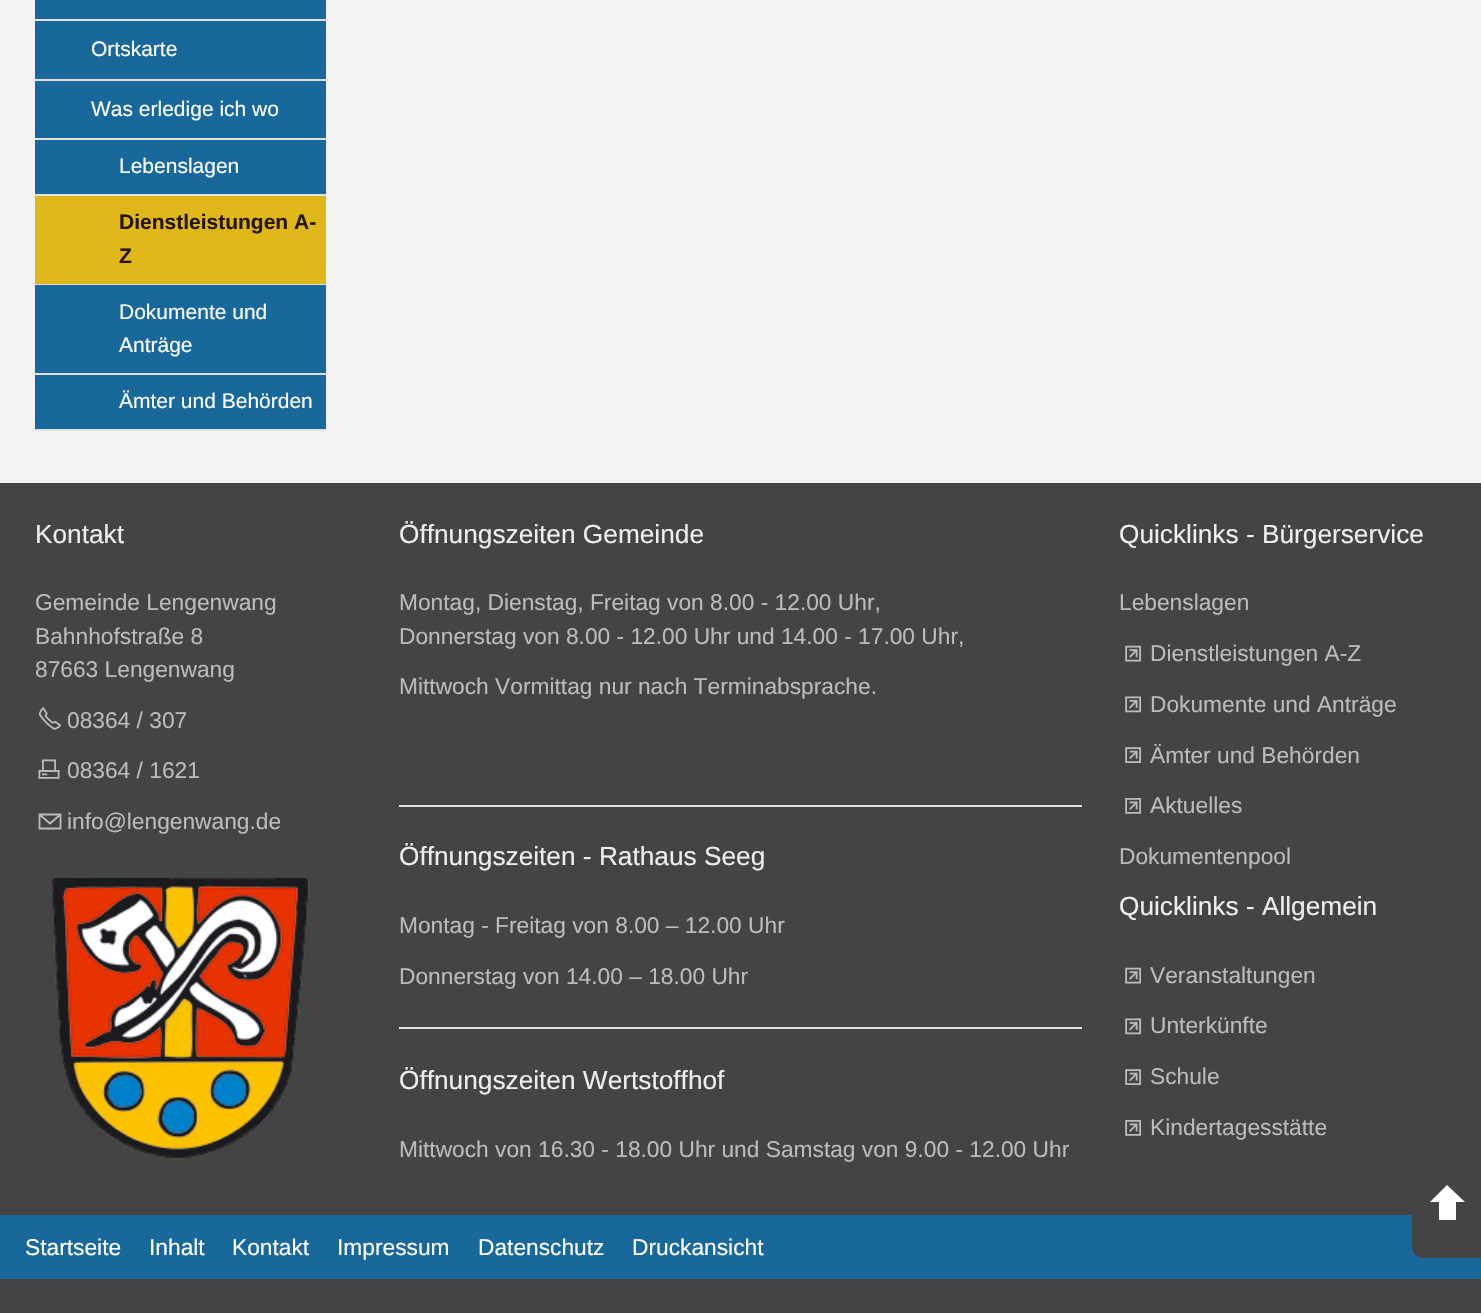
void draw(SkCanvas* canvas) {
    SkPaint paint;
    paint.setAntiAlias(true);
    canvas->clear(0xFFF2F2F2);
    paint.setColor(0xFF19689C);
    canvas->drawRect(SkRect::MakeXYWH(35, 0, 291, 19), paint);
    paint.setColor(0xFFE0E0E0);
    canvas->drawRect(SkRect::MakeXYWH(35, 19, 291, 2), paint);
    paint.setColor(0xFF19689C);
    canvas->drawRect(SkRect::MakeXYWH(35, 21, 291, 58), paint);
    paint.setColor(0xFFE0E0E0);
    canvas->drawRect(SkRect::MakeXYWH(35, 79, 291, 2), paint);
    SkFont font1(fontMgr->matchFamilyStyle("Liberation Sans", SkFontStyle::Normal()), 21);
    font1.setSubpixel(true);
    paint.setColor(0xFFFFFFFF);
    canvas->drawString("Ortskarte", 91, 56, font1, paint);
    paint.setColor(0xFF19689C);
    canvas->drawRect(SkRect::MakeXYWH(35, 81, 291, 57), paint);
    paint.setColor(0xFFE0E0E0);
    canvas->drawRect(SkRect::MakeXYWH(35, 138, 291, 2), paint);
    paint.setColor(0xFFFFFFFF);
    canvas->drawString("Was erledige ich wo", 91, 116, font1, paint);
    paint.setColor(0xFF19689C);
    canvas->drawRect(SkRect::MakeXYWH(35, 140, 291, 54), paint);
    paint.setColor(0xFFE0E0E0);
    canvas->drawRect(SkRect::MakeXYWH(35, 194, 291, 2), paint);
    paint.setColor(0xFFFFFFFF);
    canvas->drawString("Lebenslagen", 119, 173, font1, paint);
    paint.setColor(0xFFE0B718);
    canvas->drawRect(SkRect::MakeXYWH(35, 196, 291, 88), paint);
    paint.setColor(0xFFE0E0E0);
    canvas->drawRect(SkRect::MakeXYWH(35, 284, 291, 1), paint);
    SkFont font2(fontMgr->matchFamilyStyle("Liberation Sans", SkFontStyle::Bold()), 21);
    font2.setSubpixel(true);
    paint.setColor(0xFF261507);
    canvas->drawString("Dienstleistungen A-", 119, 229, font2, paint);
    canvas->drawString("Z", 119, 263, font2, paint);
    paint.setColor(0xFF19689C);
    canvas->drawRect(SkRect::MakeXYWH(35, 285, 291, 88), paint);
    paint.setColor(0xFFE0E0E0);
    canvas->drawRect(SkRect::MakeXYWH(35, 373, 291, 2), paint);
    paint.setColor(0xFFFFFFFF);
    canvas->drawString("Dokumente und", 119, 319, font1, paint);
    canvas->drawString("Anträge", 119, 352, font1, paint);
    paint.setColor(0xFF19689C);
    canvas->drawRect(SkRect::MakeXYWH(35, 375, 291, 54), paint);
    paint.setColor(0xFFE0E0E0);
    canvas->drawRect(SkRect::MakeXYWH(35, 429, 291, 2), paint);
    paint.setColor(0xFFFFFFFF);
    canvas->drawString("Ämter und Behörden", 119, 408, font1, paint);
    paint.setColor(0xFF444444);
    canvas->drawRect(SkRect::MakeXYWH(0, 483, 1481, 830), paint);
    SkFont font3(fontMgr->matchFamilyStyle("Liberation Sans", SkFontStyle::Normal()), 26.25f);
    font3.setSubpixel(true);
    paint.setColor(0xFFEEEEEE);
    canvas->drawString("Kontakt", 35, 543, font3, paint);
    SkFont font4(fontMgr->matchFamilyStyle("Liberation Sans", SkFontStyle::Normal()), 22.75f);
    font4.setSubpixel(true);
    paint.setColor(0xFFBBBBBB);
    canvas->drawString("Gemeinde Lengenwang", 35, 610, font4, paint);
    canvas->drawString("Bahnhofstraße 8", 35, 644, font4, paint);
    canvas->drawString("87663 Lengenwang", 35, 677, font4, paint);
    canvas->drawImageRect(SkImages::DeferredFromEncodedData(SkData::MakeFromFileName("img1.png")), SkRect::MakeXYWH(38, 707, 24, 23), SkSamplingOptions());
    canvas->drawString("08364 / 307", 67, 728, font4, paint);
    canvas->drawImageRect(SkImages::DeferredFromEncodedData(SkData::MakeFromFileName("img2.png")), SkRect::MakeXYWH(38, 759, 22, 20), SkSamplingOptions());
    canvas->drawString("08364 / 1621", 67, 778, font4, paint);
    paint.setStyle(SkPaint::kStroke_Style);
    paint.setStrokeWidth(1.8f);
    canvas->drawPath(SkPathBuilder().moveTo(39.5f, 814.5f).lineTo(60.5f, 814.5f).lineTo(60.5f, 828.5f).lineTo(39.5f, 828.5f).close().moveTo(39.5f, 814.5f).lineTo(50, 823.5f).lineTo(60.5f, 814.5f).detach(), paint);
    paint.setStyle(SkPaint::kFill_Style);
    canvas->drawString("info@lengenwang.de", 67, 829, font4, paint);
    canvas->drawImageRect(SkImages::DeferredFromEncodedData(SkData::MakeFromFileName("img3.png")), SkRect::MakeXYWH(49, 876, 261, 284), SkSamplingOptions());
    paint.setColor(0xFFEEEEEE);
    canvas->drawString("Öffnungszeiten Gemeinde", 399, 543, font3, paint);
    paint.setColor(0xFFBBBBBB);
    canvas->drawString("Montag, Dienstag, Freitag von 8.00 - 12.00 Uhr,", 399, 610, font4, paint);
    canvas->drawString("Donnerstag von 8.00 - 12.00 Uhr und 14.00 - 17.00 Uhr,", 399, 644, font4, paint);
    canvas->drawString("Mittwoch Vormittag nur nach Terminabsprache.", 399, 694, font4, paint);
    paint.setColor(0xFFE0E0E0);
    canvas->drawRect(SkRect::MakeXYWH(399, 805, 683, 2), paint);
    paint.setColor(0xFFEEEEEE);
    canvas->drawString("Öffnungszeiten - Rathaus Seeg", 399, 865, font3, paint);
    paint.setColor(0xFFBBBBBB);
    canvas->drawString("Montag - Freitag von 8.00 – 12.00 Uhr", 399, 933, font4, paint);
    canvas->drawString("Donnerstag von 14.00 – 18.00 Uhr", 399, 984, font4, paint);
    paint.setColor(0xFFE0E0E0);
    canvas->drawRect(SkRect::MakeXYWH(399, 1027, 683, 2), paint);
    paint.setColor(0xFFEEEEEE);
    canvas->drawString("Öffnungszeiten Wertstoffhof", 399, 1089, font3, paint);
    paint.setColor(0xFFBBBBBB);
    canvas->drawString("Mittwoch von 16.30 - 18.00 Uhr und Samstag von 9.00 - 12.00 Uhr", 399, 1157, font4, paint);
    paint.setColor(0xFFEEEEEE);
    canvas->drawString("Quicklinks - Bürgerservice", 1119, 543, font3, paint);
    paint.setColor(0xFFBBBBBB);
    canvas->drawString("Lebenslagen", 1119, 610, font4, paint);
    canvas->drawImageRect(SkImages::DeferredFromEncodedData(SkData::MakeFromFileName("img4.png")), SkRect::MakeXYWH(1125, 645, 16, 17), SkSamplingOptions());
    canvas->drawString("Dienstleistungen A-Z", 1150, 661, font4, paint);
    canvas->drawImageRect(SkImages::DeferredFromEncodedData(SkData::MakeFromFileName("img5.png")), SkRect::MakeXYWH(1125, 696, 16, 17), SkSamplingOptions());
    canvas->drawString("Dokumente und Anträge", 1150, 712, font4, paint);
    canvas->drawImageRect(SkImages::DeferredFromEncodedData(SkData::MakeFromFileName("img6.png")), SkRect::MakeXYWH(1125, 747, 16, 16), SkSamplingOptions());
    canvas->drawString("Ämter und Behörden", 1150, 763, font4, paint);
    canvas->drawImageRect(SkImages::DeferredFromEncodedData(SkData::MakeFromFileName("img7.png")), SkRect::MakeXYWH(1125, 798, 16, 16), SkSamplingOptions());
    canvas->drawString("Aktuelles", 1150, 813, font4, paint);
    canvas->drawString("Dokumentenpool", 1119, 864, font4, paint);
    paint.setColor(0xFFEEEEEE);
    canvas->drawString("Quicklinks - Allgemein", 1119, 915, font3, paint);
    canvas->drawImageRect(SkImages::DeferredFromEncodedData(SkData::MakeFromFileName("img4.png")), SkRect::MakeXYWH(1125, 967, 16, 17), SkSamplingOptions());
    paint.setColor(0xFFBBBBBB);
    canvas->drawString("Veranstaltungen", 1150, 983, font4, paint);
    canvas->drawImageRect(SkImages::DeferredFromEncodedData(SkData::MakeFromFileName("img5.png")), SkRect::MakeXYWH(1125, 1018, 16, 17), SkSamplingOptions());
    canvas->drawString("Unterkünfte", 1150, 1033, font4, paint);
    canvas->drawImageRect(SkImages::DeferredFromEncodedData(SkData::MakeFromFileName("img6.png")), SkRect::MakeXYWH(1125, 1069, 16, 16), SkSamplingOptions());
    canvas->drawString("Schule", 1150, 1084, font4, paint);
    canvas->drawImageRect(SkImages::DeferredFromEncodedData(SkData::MakeFromFileName("img7.png")), SkRect::MakeXYWH(1125, 1120, 16, 16), SkSamplingOptions());
    canvas->drawString("Kindertagesstätte", 1150, 1135, font4, paint);
    paint.setColor(0xFF19689C);
    canvas->drawRect(SkRect::MakeXYWH(0, 1215, 1481, 64), paint);
    paint.setColor(0xFFFFFFFF);
    canvas->drawString("Startseite", 25, 1255, font4, paint);
    canvas->drawString("Inhalt", 149, 1255, font4, paint);
    canvas->drawString("Kontakt", 232, 1255, font4, paint);
    canvas->drawString("Impressum", 337, 1255, font4, paint);
    canvas->drawString("Datenschutz", 478, 1255, font4, paint);
    canvas->drawString("Druckansicht", 632, 1255, font4, paint);
    paint.setColor(0xFF444444);
    canvas->drawPath(SkPathBuilder().moveTo(1423, 1146).lineTo(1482, 1146).lineTo(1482, 1258).lineTo(1423, 1258).cubicTo(1417, 1258, 1412, 1253, 1412, 1247).lineTo(1412, 1157).cubicTo(1412, 1151, 1417, 1146, 1423, 1146).close().detach(), paint);
    paint.setColor(0xFFFFFFFF);
    canvas->drawPath(SkPathBuilder().moveTo(1465, 1202).lineTo(1430, 1202).lineTo(1447, 1185).close().detach(), paint);
    canvas->drawRect(SkRect::MakeXYWH(1439, 1202, 17, 18), paint);
}
